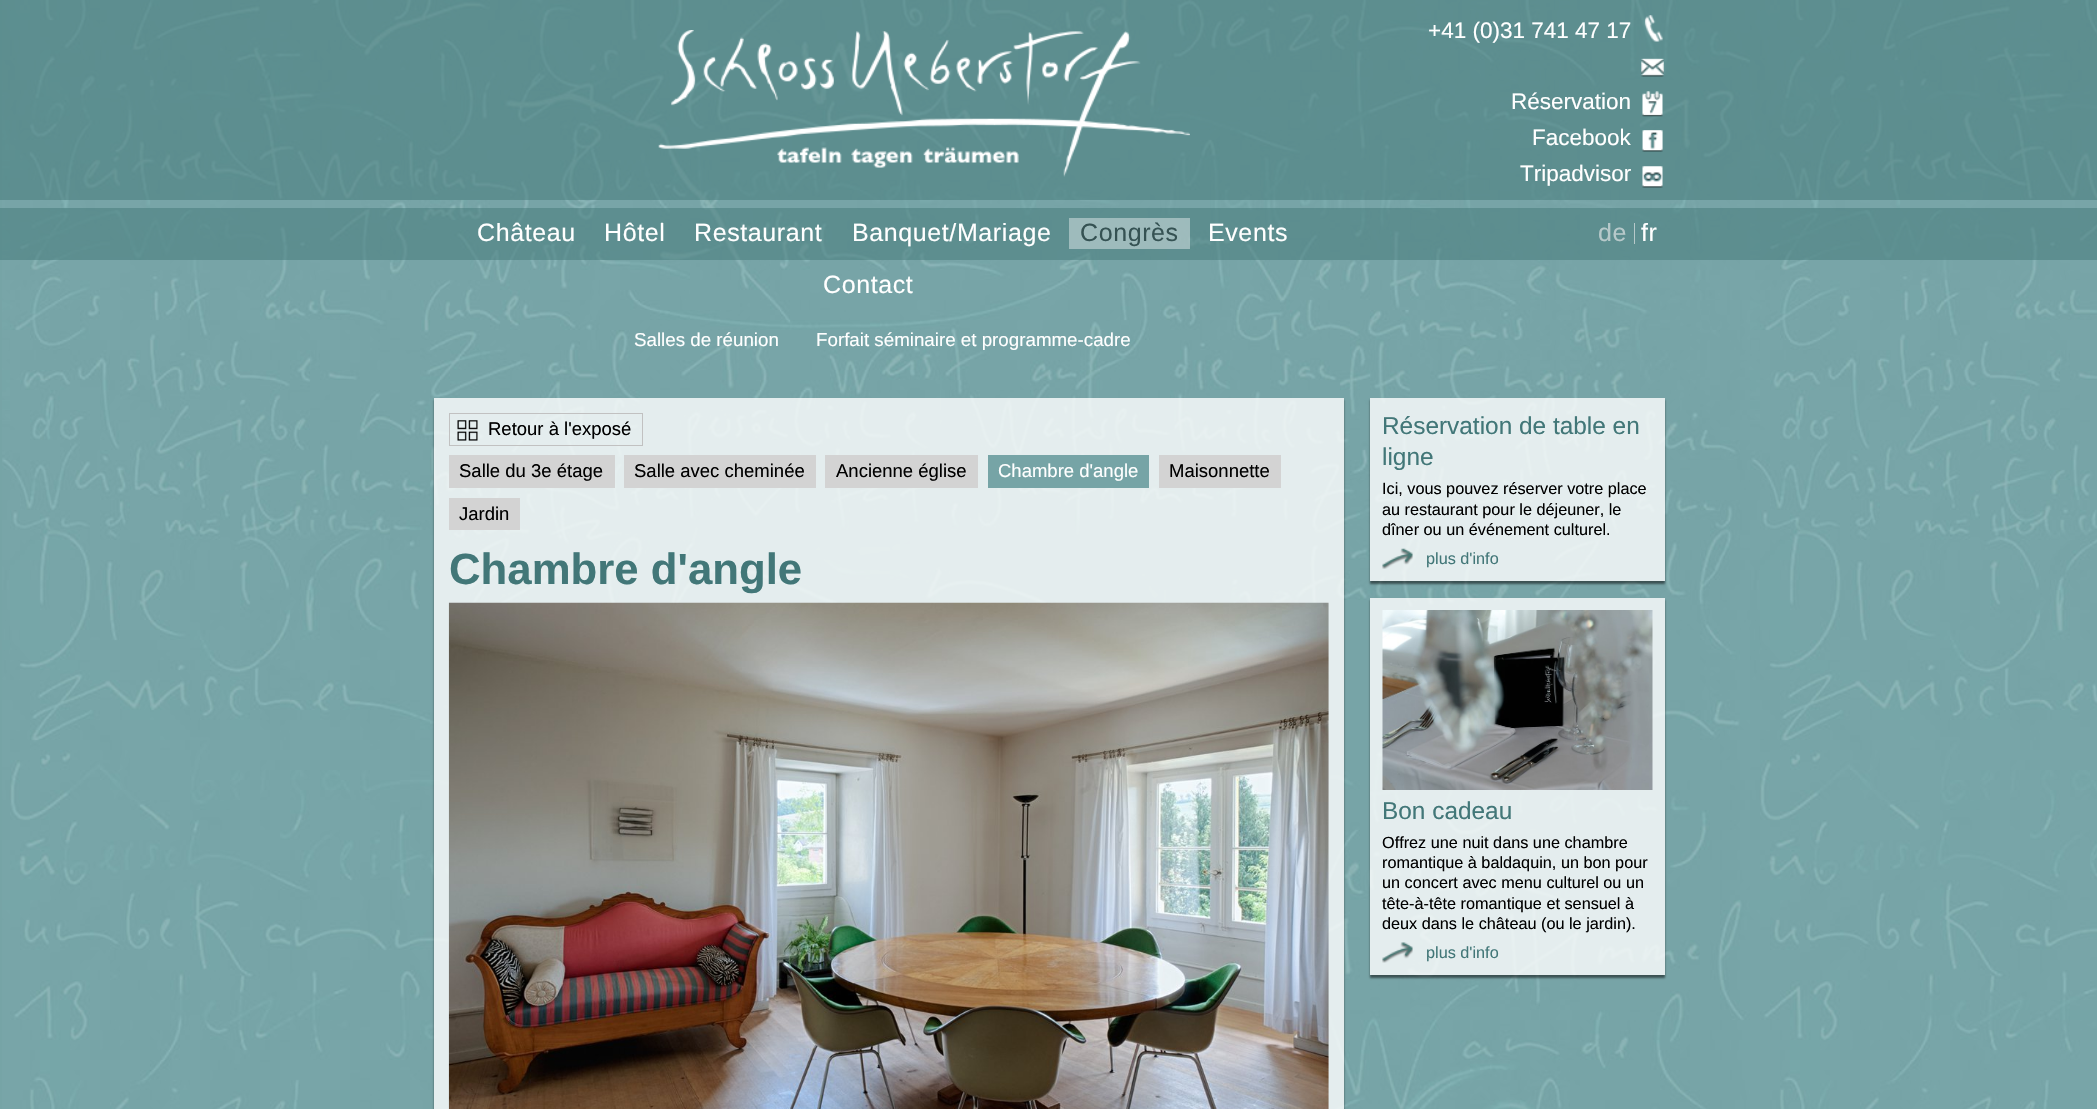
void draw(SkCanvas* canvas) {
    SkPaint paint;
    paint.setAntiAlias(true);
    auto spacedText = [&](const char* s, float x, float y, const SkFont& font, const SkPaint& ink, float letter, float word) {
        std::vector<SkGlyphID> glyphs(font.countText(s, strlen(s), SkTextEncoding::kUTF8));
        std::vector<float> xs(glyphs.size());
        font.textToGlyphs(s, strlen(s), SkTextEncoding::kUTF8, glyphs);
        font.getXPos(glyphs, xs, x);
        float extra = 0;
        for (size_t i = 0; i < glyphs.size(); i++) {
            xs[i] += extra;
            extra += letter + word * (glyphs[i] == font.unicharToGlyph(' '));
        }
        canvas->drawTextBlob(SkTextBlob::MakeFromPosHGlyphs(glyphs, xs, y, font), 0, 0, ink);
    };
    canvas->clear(0xFF76A4A6);
    canvas->drawImageRect(SkImages::DeferredFromEncodedData(SkData::MakeFromFileName("img1.png")), SkRect::MakeXYWH(2, 0, 2095, 1109), SkSamplingOptions());
    paint.setColor(0x80427778);
    canvas->drawRect(SkRect::MakeXYWH(0, 0, 2097, 200), paint);
    canvas->drawImageRect(SkImages::DeferredFromEncodedData(SkData::MakeFromFileName("img2.png")), SkRect::MakeXYWH(658, 30, 532, 147), SkSamplingOptions());
    canvas->drawImageRect(SkImages::DeferredFromEncodedData(SkData::MakeFromFileName("img3.png")), SkRect::MakeXYWH(1644, 15, 19, 27), SkSamplingOptions());
    SkFont font1(fontMgr->matchFamilyStyle("Liberation Sans", SkFontStyle::Normal()), 22.5f);
    font1.setSubpixel(true);
    paint.setColor(0xFFFFFFFF);
    canvas->drawString("+41 (0)31 741 47 17", 1428, 38, font1, paint);
    canvas->drawImageRect(SkImages::DeferredFromEncodedData(SkData::MakeFromFileName("img4.png")), SkRect::MakeXYWH(1641, 58, 23, 19), SkSamplingOptions());
    canvas->drawImageRect(SkImages::DeferredFromEncodedData(SkData::MakeFromFileName("img5.png")), SkRect::MakeXYWH(1642, 91, 21, 26), SkSamplingOptions());
    canvas->drawString("Réservation", 1511, 109, font1, paint);
    canvas->drawImageRect(SkImages::DeferredFromEncodedData(SkData::MakeFromFileName("img6.png")), SkRect::MakeXYWH(1642, 130, 21, 22), SkSamplingOptions());
    canvas->drawString("Facebook", 1532, 145, font1, paint);
    canvas->drawImageRect(SkImages::DeferredFromEncodedData(SkData::MakeFromFileName("img7.png")), SkRect::MakeXYWH(1642, 166, 21, 22), SkSamplingOptions());
    canvas->drawString("Tripadvisor", 1520, 181, font1, paint);
    paint.setColor(0x80427778);
    canvas->drawRect(SkRect::MakeXYWH(0, 208, 2097, 52), paint);
    SkFont font2(fontMgr->matchFamilyStyle("Liberation Sans", SkFontStyle::Normal()), 25);
    font2.setSubpixel(true);
    paint.setColor(0xFFFFFFFF);
    spacedText("Château", 477, 241, font2, paint, 0.6f, 0);
    spacedText("Hôtel", 604, 241, font2, paint, 0.6f, 0);
    spacedText("Restaurant", 694, 241, font2, paint, 0.6f, 0);
    spacedText("Banquet/Mariage", 852, 241, font2, paint, 0.6f, 0);
    paint.setColor(0x66FFFFFF);
    canvas->drawRect(SkRect::MakeXYWH(1069, 218, 121, 31), paint);
    paint.setColor(0xFF355253);
    spacedText("Congrès", 1080, 241, font2, paint, 0.6f, 0);
    paint.setColor(0xFFFFFFFF);
    spacedText("Events", 1208, 241, font2, paint, 0.6f, 0);
    spacedText("Contact", 823, 293, font2, paint, 0.6f, 0);
    paint.setColor(0xFFB7C9CA);
    canvas->drawRect(SkRect::MakeXYWH(1634, 223, 1, 21), paint);
    spacedText("de", 1598, 241, font2, paint, 0.6f, 0);
    paint.setColor(0xFFFFFFFF);
    spacedText("fr", 1641, 241, font2, paint, 0.6f, 0);
    SkFont font3(fontMgr->matchFamilyStyle("Liberation Sans", SkFontStyle::Normal()), 18.75f);
    font3.setSubpixel(true);
    canvas->drawString("Salles de réunion", 634, 346, font3, paint);
    canvas->drawString("Forfait séminaire et programme-cadre", 816, 346, font3, paint);
    canvas->save();
    canvas->clipPath(SkPathBuilder(SkPathFillType::kEvenOdd).moveTo(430, 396).lineTo(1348, 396).lineTo(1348, 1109).lineTo(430, 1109).close().moveTo(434, 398).lineTo(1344, 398).lineTo(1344, 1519).lineTo(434, 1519).close().detach(), true);
    paint.setColor(0x80000000);
    paint.setMaskFilter(SkMaskFilter::MakeBlur(kNormal_SkBlurStyle, 1));
    canvas->drawRect(SkRect::MakeXYWH(434, 400, 910, 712), paint);
    paint.setMaskFilter(nullptr);
    canvas->restore();
    paint.setColor(0xCCFFFFFF);
    canvas->drawRect(SkRect::MakeXYWH(434, 398, 910, 711), paint);
    canvas->drawImageRect(SkImages::DeferredFromEncodedData(SkData::MakeFromFileName("img8.png")), SkRect::MakeXYWH(457, 420, 21, 21), SkSamplingOptions());
    paint.setStyle(SkPaint::kStroke_Style);
    paint.setStrokeWidth(1);
    paint.setColor(0xFFC1C1C1);
    canvas->drawRect(SkRect::MakeXYWH(449.5f, 413.5f, 193, 32), paint);
    SkFont font4(fontMgr->matchFamilyStyle("Liberation Sans", SkFontStyle::Normal()), 18.5f);
    font4.setSubpixel(true);
    paint.setStyle(SkPaint::kFill_Style);
    paint.setColor(0xFF000000);
    canvas->drawString("Retour à l'exposé", 488, 435, font4, paint);
    paint.setColor(0xFFD3D3D3);
    canvas->drawRect(SkRect::MakeXYWH(449, 455, 166, 33), paint);
    paint.setColor(0xFF000000);
    canvas->drawString("Salle du 3e étage", 459, 477, font4, paint);
    paint.setColor(0xFFD3D3D3);
    canvas->drawRect(SkRect::MakeXYWH(624, 455, 192, 33), paint);
    paint.setColor(0xFF000000);
    canvas->drawString("Salle avec cheminée", 634, 477, font4, paint);
    paint.setColor(0xFFD3D3D3);
    canvas->drawRect(SkRect::MakeXYWH(825, 455, 153, 33), paint);
    paint.setColor(0xFF000000);
    canvas->drawString("Ancienne église", 836, 477, font4, paint);
    paint.setColor(0xFF76A4A6);
    canvas->drawRect(SkRect::MakeXYWH(988, 455, 161, 33), paint);
    paint.setColor(0xFFFFFFFF);
    canvas->drawString("Chambre d'angle", 998, 477, font4, paint);
    paint.setColor(0xFFD3D3D3);
    canvas->drawRect(SkRect::MakeXYWH(1159, 455, 122, 33), paint);
    paint.setColor(0xFF000000);
    canvas->drawString("Maisonnette", 1169, 477, font4, paint);
    paint.setColor(0xFFD3D3D3);
    canvas->drawRect(SkRect::MakeXYWH(449, 498, 71, 32), paint);
    paint.setColor(0xFF000000);
    canvas->drawString("Jardin", 459, 520, font4, paint);
    SkFont font5(fontMgr->matchFamilyStyle("Liberation Sans", SkFontStyle::Bold()), 43.75f);
    font5.setSubpixel(true);
    paint.setColor(0xFF427778);
    canvas->drawString("Chambre d'angle", 449, 584, font5, paint);
    canvas->drawImageRect(SkImages::DeferredFromEncodedData(SkData::MakeFromFileName("img9.png")), SkRect::MakeXYWH(448, 602, 881, 507), SkSamplingOptions());
    canvas->save();
    canvas->clipPath(SkPathBuilder(SkPathFillType::kEvenOdd).moveTo(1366, 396).lineTo(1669, 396).lineTo(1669, 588).lineTo(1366, 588).close().moveTo(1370, 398).lineTo(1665, 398).lineTo(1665, 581).lineTo(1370, 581).close().detach(), true);
    paint.setColor(0x80000000);
    paint.setMaskFilter(SkMaskFilter::MakeBlur(kNormal_SkBlurStyle, 1));
    canvas->drawRect(SkRect::MakeXYWH(1370, 400, 295, 184), paint);
    paint.setMaskFilter(nullptr);
    canvas->restore();
    paint.setColor(0xCCFFFFFF);
    canvas->drawRect(SkRect::MakeXYWH(1370, 398, 295, 183), paint);
    SkFont font6(fontMgr->matchFamilyStyle("Liberation Sans", SkFontStyle::Normal()), 24.4f);
    font6.setSubpixel(true);
    paint.setColor(0xFF427778);
    canvas->drawString("Réservation de table en", 1382, 434, font6, paint);
    canvas->drawString("ligne", 1382, 465, font6, paint);
    SkFont font7(fontMgr->matchFamilyStyle("Liberation Sans", SkFontStyle::Normal()), 16.25f);
    font7.setSubpixel(true);
    paint.setColor(0xFF000000);
    canvas->drawString("Ici, vous pouvez réserver votre place", 1382, 494, font7, paint);
    canvas->drawString("au restaurant pour le déjeuner, le", 1382, 515, font7, paint);
    canvas->drawString("dîner ou un événement culturel.", 1382, 535, font7, paint);
    canvas->drawImageRect(SkImages::DeferredFromEncodedData(SkData::MakeFromFileName("img10.png")), SkRect::MakeXYWH(1382, 548, 31, 21), SkSamplingOptions());
    paint.setColor(0xFF427778);
    canvas->drawString("plus d'info", 1426, 564, font7, paint);
    canvas->save();
    canvas->clipPath(SkPathBuilder(SkPathFillType::kEvenOdd).moveTo(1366, 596).lineTo(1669, 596).lineTo(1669, 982).lineTo(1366, 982).close().moveTo(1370, 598).lineTo(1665, 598).lineTo(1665, 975).lineTo(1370, 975).close().detach(), true);
    paint.setColor(0x80000000);
    paint.setMaskFilter(SkMaskFilter::MakeBlur(kNormal_SkBlurStyle, 1));
    canvas->drawRect(SkRect::MakeXYWH(1370, 600, 295, 378), paint);
    paint.setMaskFilter(nullptr);
    canvas->restore();
    paint.setColor(0xCCFFFFFF);
    canvas->drawRect(SkRect::MakeXYWH(1370, 598, 295, 377), paint);
    canvas->drawImageRect(SkImages::DeferredFromEncodedData(SkData::MakeFromFileName("img11.png")), SkRect::MakeXYWH(1382, 610, 271, 180), SkSamplingOptions());
    paint.setColor(0xFF427778);
    canvas->drawString("Bon cadeau", 1382, 819, font6, paint);
    paint.setColor(0xFF000000);
    canvas->drawString("Offrez une nuit dans une chambre", 1382, 848, font7, paint);
    canvas->drawString("romantique à baldaquin, un bon pour", 1382, 868, font7, paint);
    canvas->drawString("un concert avec menu culturel ou un", 1382, 888, font7, paint);
    canvas->drawString("tête-à-tête romantique et sensuel à", 1382, 909, font7, paint);
    canvas->drawString("deux dans le château (ou le jardin).", 1382, 929, font7, paint);
    canvas->drawImageRect(SkImages::DeferredFromEncodedData(SkData::MakeFromFileName("img12.png")), SkRect::MakeXYWH(1382, 942, 31, 21), SkSamplingOptions());
    paint.setColor(0xFF427778);
    canvas->drawString("plus d'info", 1426, 958, font7, paint);
}
